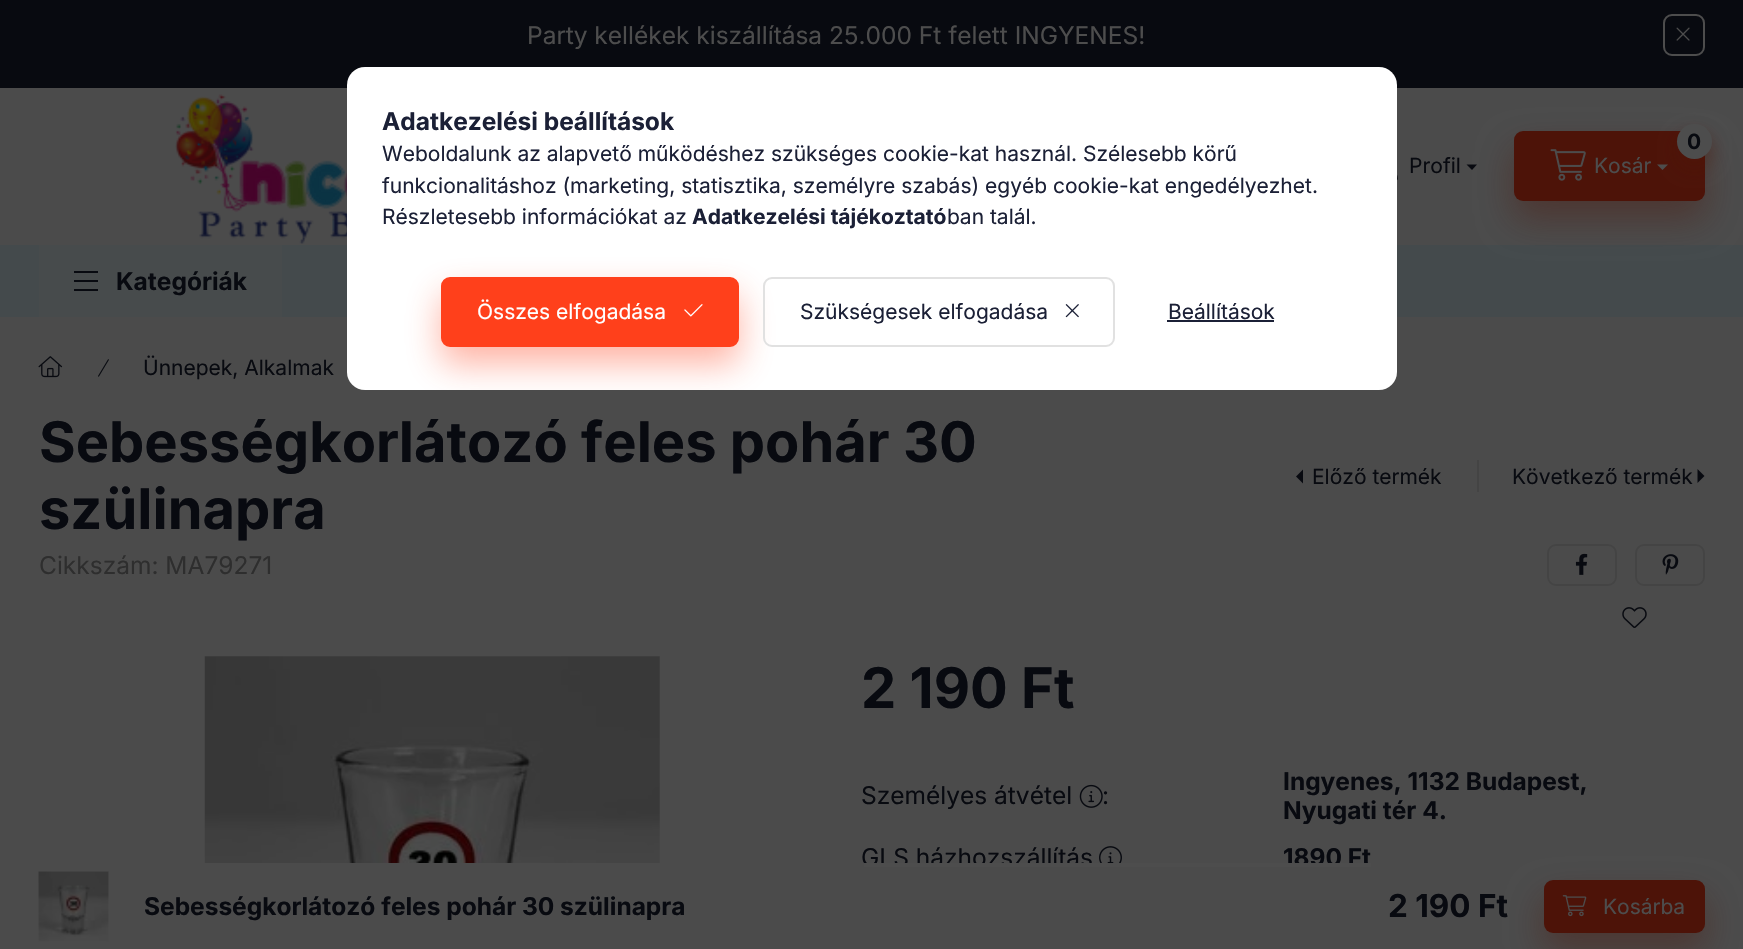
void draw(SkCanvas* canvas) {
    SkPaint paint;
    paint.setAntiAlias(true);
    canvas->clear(0xFF4B4B4B);
    paint.setColor(0xFF080A10);
    canvas->drawRect(SkRect::MakeXYWH(0, 0, 1743, 88), paint);
    SkFont font1(fontMgr->matchFamilyStyle("Inter", SkFontStyle::Normal()), 24.5f);
    font1.setSubpixel(true);
    paint.setColor(0xFF4D4D4D);
    canvas->drawString("Party kellékek kiszállítása 25.000 Ft felett INGYENES!", 527, 44, font1, paint);
    paint.setStyle(SkPaint::kStroke_Style);
    paint.setStrokeWidth(2);
    canvas->drawRoundRect(SkRect::MakeXYWH(1664, 15, 40, 40), 8, 8, paint);
    canvas->drawImageRect(SkImages::DeferredFromEncodedData(SkData::MakeFromFileName("img1.png")), SkRect::MakeXYWH(1676, 27, 14, 14), SkSamplingOptions());
    canvas->drawImageRect(SkImages::DeferredFromEncodedData(SkData::MakeFromFileName("img2.png")), SkRect::MakeXYWH(175, 94, 172, 150), SkSamplingOptions());
    SkFont font2(fontMgr->matchFamilyStyle("Inter", SkFontStyle::Normal()), 21);
    font2.setSubpixel(true);
    paint.setStyle(SkPaint::kFill_Style);
    paint.setColor(0xFF080A10);
    canvas->drawString("Profil", 1409, 173, font2, paint);
    paint.setColor(0xFF444A4C);
    canvas->drawRect(SkRect::MakeXYWH(0, 245, 1743, 72), paint);
    paint.setColor(0x664D1308);
    paint.setMaskFilter(SkMaskFilter::MakeBlur(kNormal_SkBlurStyle, 17.5f));
    canvas->drawRoundRect(SkRect::MakeXYWH(1514, 149, 191, 70), 9, 9, paint);
    paint.setMaskFilter(nullptr);
    paint.setColor(0xFF080A10);
    canvas->drawPath(SkPathBuilder().moveTo(1466.5f, 164.5f).lineTo(1477, 164.5f).lineTo(1472, 170).close().detach(), paint);
    canvas->drawImageRect(SkImages::DeferredFromEncodedData(SkData::MakeFromFileName("img3.png")), SkRect::MakeXYWH(1397, 174, 1, 7), SkSamplingOptions());
    paint.setColor(0xFF4D1308);
    canvas->drawRoundRect(SkRect::MakeXYWH(1514, 131, 191, 70), 9, 9, paint);
    paint.setColor(0x664D1308);
    paint.setMaskFilter(SkMaskFilter::MakeBlur(kNormal_SkBlurStyle, 9));
    canvas->drawRoundRect(SkRect::MakeXYWH(1677, 133, 35, 35), 17.5f, 17.5f, paint);
    paint.setMaskFilter(nullptr);
    paint.setColor(0xFF4D4D4D);
    canvas->drawCircle(1694.5f, 141.5f, 17.5f, paint);
    SkFont font3(fontMgr->matchFamilyStyle("Inter", SkFontStyle::Bold()), 21);
    font3.setSubpixel(true);
    paint.setColor(0xFF080A10);
    canvas->drawString("0", 1687, 149, font3, paint);
    canvas->drawImageRect(SkImages::DeferredFromEncodedData(SkData::MakeFromFileName("img4.png")), SkRect::MakeXYWH(1550, 149, 36, 32), SkSamplingOptions());
    paint.setColor(0xFF4D4D4D);
    canvas->drawString("Kosár", 1594, 173, font2, paint);
    canvas->drawPath(SkPathBuilder().moveTo(1657, 164.5f).lineTo(1668, 164.5f).lineTo(1662.5f, 170).close().detach(), paint);
    paint.setColor(0xFF474B4C);
    canvas->drawRect(SkRect::MakeXYWH(39, 245, 243, 72), paint);
    paint.setColor(0xFF080A10);
    canvas->drawRect(SkRect::MakeXYWH(74, 271, 24, 2), paint);
    canvas->drawRect(SkRect::MakeXYWH(74, 280, 24, 2), paint);
    canvas->drawRect(SkRect::MakeXYWH(74, 289, 24, 2), paint);
    SkFont font4(fontMgr->matchFamilyStyle("Inter", SkFontStyle::Bold()), 24.5f);
    font4.setSubpixel(true);
    canvas->drawString("Kategóriák", 116, 290, font4, paint);
    canvas->drawImageRect(SkImages::DeferredFromEncodedData(SkData::MakeFromFileName("img5.png")), SkRect::MakeXYWH(38, 356, 25, 22), SkSamplingOptions());
    canvas->drawImageRect(SkImages::DeferredFromEncodedData(SkData::MakeFromFileName("img6.png")), SkRect::MakeXYWH(98, 359, 11, 18), SkSamplingOptions());
    canvas->drawString("Ünnepek, Alkalmak", 143, 375, font2, paint);
    SkFont font5(fontMgr->matchFamilyStyle("Inter", SkFontStyle::Bold()), 56);
    font5.setSubpixel(true);
    canvas->drawString("Sebességkorlátozó feles pohár 30", 39, 462, font5, paint);
    canvas->drawString("szülinapra", 39, 529, font5, paint);
    canvas->drawPath(SkPathBuilder().moveTo(1303, 483.5f).lineTo(1303, 469.5f).lineTo(1296, 476.5f).close().detach(), paint);
    canvas->drawString("Előző termék", 1312, 484, font2, paint);
    paint.setColor(0xFF444444);
    canvas->drawRect(SkRect::MakeXYWH(1477, 460, 2, 32), paint);
    paint.setColor(0xFF080A10);
    canvas->drawString("Következő termék", 1512, 484, font2, paint);
    canvas->drawPath(SkPathBuilder().moveTo(1697.5f, 483).lineTo(1697.5f, 469).lineTo(1704.5f, 476).close().detach(), paint);
    paint.setColor(0xFF2E2E2E);
    canvas->drawString("Cikkszám: MA79271", 39, 574, font1, paint);
    paint.setStyle(SkPaint::kStroke_Style);
    paint.setColor(0xFF444444);
    canvas->drawRoundRect(SkRect::MakeXYWH(1548, 545, 68, 40), 8, 8, paint);
    canvas->drawImageRect(SkImages::DeferredFromEncodedData(SkData::MakeFromFileName("img7.png")), SkRect::MakeXYWH(1575, 553, 13, 22), SkSamplingOptions());
    canvas->drawRoundRect(SkRect::MakeXYWH(1636, 545, 68, 40), 8, 8, paint);
    canvas->drawImageRect(SkImages::DeferredFromEncodedData(SkData::MakeFromFileName("img8.png")), SkRect::MakeXYWH(1662, 554, 17, 21), SkSamplingOptions());
    canvas->drawImageRect(SkImages::DeferredFromEncodedData(SkData::MakeFromFileName("img9.png")), SkRect::MakeXYWH(1622, 607, 25, 21), SkSamplingOptions());
    canvas->drawImageRect(SkImages::DeferredFromEncodedData(SkData::MakeFromFileName("img10.png")), SkRect::MakeXYWH(204, 656, 456, 207), SkSamplingOptions());
    paint.setStyle(SkPaint::kFill_Style);
    paint.setColor(0xFF080A10);
    canvas->drawString("2 190 Ft", 861, 708, font5, paint);
    canvas->drawString("Személyes átvétel", 861, 804, font1, paint);
    canvas->drawImageRect(SkImages::DeferredFromEncodedData(SkData::MakeFromFileName("img11.png")), SkRect::MakeXYWH(1079, 784, 24, 24), SkSamplingOptions());
    canvas->drawString(":", 1102, 804, font1, paint);
    canvas->drawString("Ingyenes, 1132 Budapest,", 1283, 790, font4, paint);
    canvas->drawString("Nyugati tér 4.", 1283, 819, font4, paint);
    canvas->drawString("GLS házhozszállítás", 861, 866, font1, paint);
    canvas->drawImageRect(SkImages::DeferredFromEncodedData(SkData::MakeFromFileName("img12.png")), SkRect::MakeXYWH(1099, 846, 23, 17), SkSamplingOptions());
    canvas->drawString("1890 Ft", 1283, 866, font4, paint);
    paint.setColor(0xFF4D4D4D);
    canvas->drawRect(SkRect::MakeXYWH(864, 863, 507, 4), paint);
    canvas->drawImageRect(SkImages::DeferredFromEncodedData(SkData::MakeFromFileName("img13.png")), SkRect::MakeXYWH(38, 871, 71, 71), SkSamplingOptions());
    paint.setColor(0xFF080A10);
    canvas->drawString("Sebességkorlátozó feles pohár 30 szülinapra", 144, 915, font4, paint);
    SkFont font6(fontMgr->matchFamilyStyle("Inter", SkFontStyle::Bold()), 31.5f);
    font6.setSubpixel(true);
    canvas->drawString("2 190 Ft", 1388, 917, font6, paint);
    paint.setColor(0x664D1308);
    paint.setMaskFilter(SkMaskFilter::MakeBlur(kNormal_SkBlurStyle, 17.5f));
    canvas->drawRoundRect(SkRect::MakeXYWH(1544, 898, 161, 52), 9, 9, paint);
    paint.setMaskFilter(nullptr);
    paint.setColor(0xFF4D1308);
    canvas->drawRoundRect(SkRect::MakeXYWH(1544, 880, 161, 53), 9, 9, paint);
    canvas->drawImageRect(SkImages::DeferredFromEncodedData(SkData::MakeFromFileName("img14.png")), SkRect::MakeXYWH(1562, 895, 25, 22), SkSamplingOptions());
    paint.setColor(0xFF4D4D4D);
    canvas->drawString("Kosárba", 1603, 914, font2, paint);
    paint.setColor(0xFFFFFFFF);
    canvas->drawRoundRect(SkRect::MakeXYWH(347, 67, 1050, 323), 18, 18, paint);
    paint.setColor(0xFF1B2036);
    canvas->drawString("Adatkezelési beállítások", 382, 130, font4, paint);
    canvas->drawString("Weboldalunk az alapvető működéshez szükséges cookie-kat használ. Szélesebb körű", 382, 161, font2, paint);
    canvas->drawString("funkcionalitáshoz (marketing, statisztika, személyre szabás) egyéb cookie-kat engedélyezhet.", 382, 193, font2, paint);
    canvas->drawString("Részletesebb információkat az", 382, 224, font2, paint);
    canvas->drawString("Adatkezelési tájékoztató", 692, 224, font3, paint);
    canvas->drawString("ban talál.", 947, 224, font2, paint);
    canvas->save();
    canvas->clipPath(SkPathBuilder().moveTo(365, 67).lineTo(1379, 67).cubicTo(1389, 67, 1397, 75, 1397, 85).lineTo(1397, 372).cubicTo(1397, 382, 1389, 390, 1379, 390).lineTo(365, 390).cubicTo(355, 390, 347, 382, 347, 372).lineTo(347, 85).cubicTo(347, 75, 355, 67, 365, 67).close().detach(), true);
    paint.setColor(0x66FF401B);
    paint.setMaskFilter(SkMaskFilter::MakeBlur(kNormal_SkBlurStyle, 17.5f));
    canvas->drawRoundRect(SkRect::MakeXYWH(441, 294, 298, 70), 9, 9, paint);
    paint.setMaskFilter(nullptr);
    canvas->restore();
    paint.setColor(0xFFFF401B);
    canvas->drawRoundRect(SkRect::MakeXYWH(442, 278, 296, 68), 8, 8, paint);
    paint.setStyle(SkPaint::kStroke_Style);
    canvas->drawRoundRect(SkRect::MakeXYWH(442, 278, 296, 68), 8, 8, paint);
    paint.setStyle(SkPaint::kFill_Style);
    paint.setColor(0xFFFFFFFF);
    canvas->drawString("Összes elfogadása", 477, 319, font2, paint);
    canvas->drawImageRect(SkImages::DeferredFromEncodedData(SkData::MakeFromFileName("img15.png")), SkRect::MakeXYWH(684, 304, 19, 13), SkSamplingOptions());
    paint.setStyle(SkPaint::kStroke_Style);
    paint.setColor(0xFFE1E1E1);
    canvas->drawRoundRect(SkRect::MakeXYWH(764, 278, 350, 68), 8, 8, paint);
    paint.setStyle(SkPaint::kFill_Style);
    paint.setColor(0xFF1B2036);
    canvas->drawString("Szükségesek elfogadása", 800, 319, font2, paint);
    canvas->drawImageRect(SkImages::DeferredFromEncodedData(SkData::MakeFromFileName("img16.png")), SkRect::MakeXYWH(1065, 304, 14, 14), SkSamplingOptions());
    canvas->drawString("Beállítások", 1168, 319, font2, paint);
    canvas->drawRect(SkRect::MakeXYWH(1167, 320, 107, 2), paint);
}
